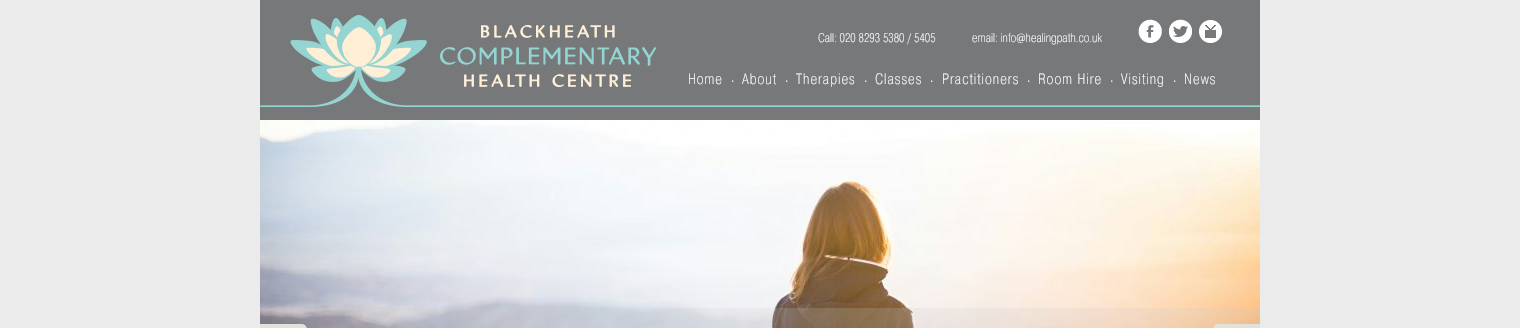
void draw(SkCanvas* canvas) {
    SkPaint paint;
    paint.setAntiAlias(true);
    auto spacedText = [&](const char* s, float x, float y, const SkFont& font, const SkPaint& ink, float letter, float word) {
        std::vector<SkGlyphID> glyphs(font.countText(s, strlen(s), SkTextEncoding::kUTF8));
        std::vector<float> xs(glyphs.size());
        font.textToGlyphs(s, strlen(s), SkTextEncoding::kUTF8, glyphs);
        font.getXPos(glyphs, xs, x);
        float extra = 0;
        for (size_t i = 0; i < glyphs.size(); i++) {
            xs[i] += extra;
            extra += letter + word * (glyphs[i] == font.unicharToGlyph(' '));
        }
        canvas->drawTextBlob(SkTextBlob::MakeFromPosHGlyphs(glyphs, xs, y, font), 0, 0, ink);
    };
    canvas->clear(0xFFEBEBEB);
    paint.setColor(0xFF76787A);
    canvas->drawRect(SkRect::MakeXYWH(260, 0, 1000, 120), paint);
    canvas->drawImageRect(SkImages::DeferredFromEncodedData(SkData::MakeFromFileName("img1.png")), SkRect::MakeXYWH(260, 15, 1000, 92), SkSamplingOptions());
    canvas->drawImageRect(SkImages::DeferredFromEncodedData(SkData::MakeFromFileName("img2.png")), SkRect::MakeXYWH(440, 25, 216, 62), SkSamplingOptions());
    SkFont font1(fontMgr->matchFamilyStyle("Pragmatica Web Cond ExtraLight", SkFontStyle(200, SkFontStyle::kNormal_Width, SkFontStyle::kUpright_Slant)), 12.5f);
    font1.setSubpixel(true);
    paint.setColor(0xFFFFFFFF);
    canvas->drawString("Call: 020 8293 5380 / 5405", 818, 42, font1, paint);
    canvas->drawString("email: info@healingpath.co.uk", 972, 42, font1, paint);
    canvas->drawImageRect(SkImages::DeferredFromEncodedData(SkData::MakeFromFileName("img3.png")), SkRect::MakeXYWH(1138, 19, 24, 24), SkSamplingOptions());
    canvas->drawImageRect(SkImages::DeferredFromEncodedData(SkData::MakeFromFileName("img4.png")), SkRect::MakeXYWH(1169, 19, 23, 24), SkSamplingOptions());
    canvas->drawImageRect(SkImages::DeferredFromEncodedData(SkData::MakeFromFileName("img5.png")), SkRect::MakeXYWH(1199, 20, 23, 23), SkSamplingOptions());
    SkFont font2(fontMgr->matchFamilyStyle("Pragmatica Web Cond ExtraLight", SkFontStyle(200, SkFontStyle::kNormal_Width, SkFontStyle::kUpright_Slant)), 15);
    font2.setSubpixel(true);
    spacedText("Home", 688, 84, font2, paint, 1, 0);
    SkFont font3(fontMgr->matchFamilyStyle("Pragmatica Web Cond ExtraLight", SkFontStyle(200, SkFontStyle::kNormal_Width, SkFontStyle::kUpright_Slant)), 8);
    font3.setSubpixel(true);
    spacedText("•", 731, 84, font3, paint, 1, 0);
    spacedText("About", 742, 84, font2, paint, 1, 0);
    spacedText("•", 785, 84, font3, paint, 1, 0);
    spacedText("Therapies", 796, 84, font2, paint, 1, 0);
    spacedText("•", 864, 84, font3, paint, 1, 0);
    spacedText("Classes", 875, 84, font2, paint, 1, 0);
    spacedText("•", 930, 84, font3, paint, 1, 0);
    spacedText("Practitioners", 942, 84, font2, paint, 1, 0);
    spacedText("•", 1027, 84, font3, paint, 1, 0);
    spacedText("Room Hire", 1038, 84, font2, paint, 1, 0);
    spacedText("•", 1110, 84, font3, paint, 1, 0);
    spacedText("Visiting", 1121, 84, font2, paint, 1, 0);
    spacedText("•", 1173, 84, font3, paint, 1, 0);
    spacedText("News", 1184, 84, font2, paint, 1, 0);
    canvas->drawImageRect(SkImages::DeferredFromEncodedData(SkData::MakeFromFileName("img6.png")), SkRect::MakeXYWH(260, 120, 1000, 208), SkSamplingOptions());
    paint.setColor(0x33CDCDCD);
    canvas->drawRect(SkRect::MakeXYWH(260, 308, 1000, 20), paint);
    canvas->drawImageRect(SkImages::DeferredFromEncodedData(SkData::MakeFromFileName("img7.png")), SkRect::MakeXYWH(260, 324, 47, 4), SkSamplingOptions());
    canvas->drawImageRect(SkImages::DeferredFromEncodedData(SkData::MakeFromFileName("img8.png")), SkRect::MakeXYWH(1213, 324, 47, 4), SkSamplingOptions());
}
